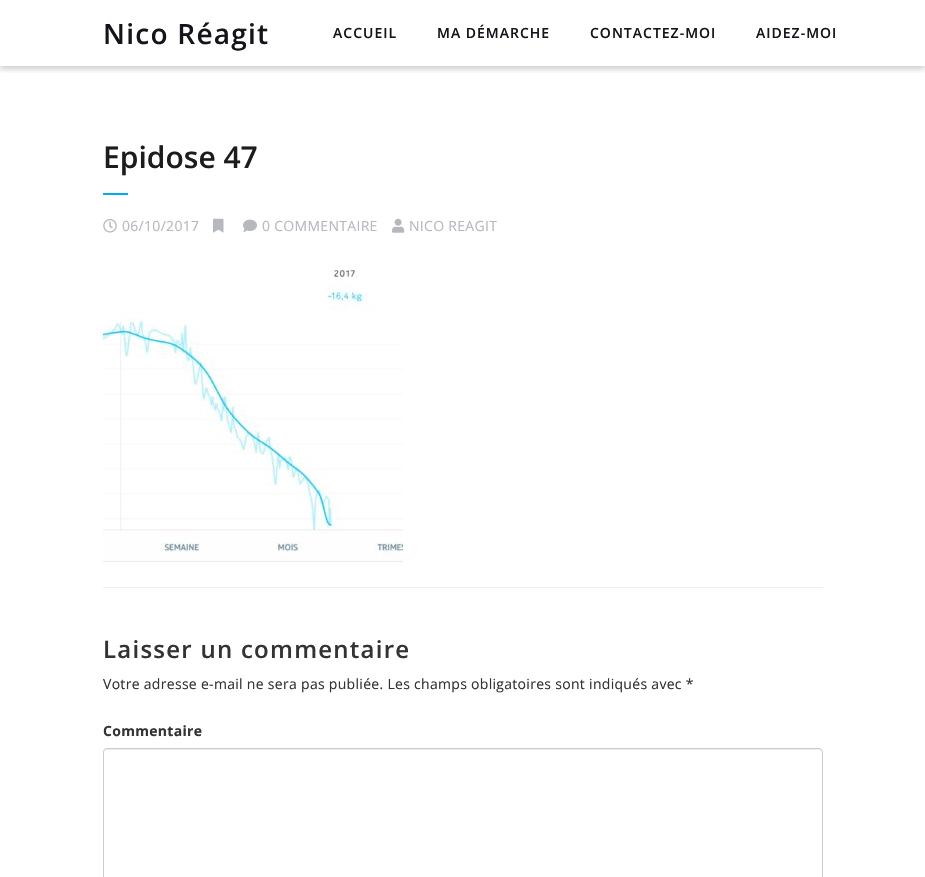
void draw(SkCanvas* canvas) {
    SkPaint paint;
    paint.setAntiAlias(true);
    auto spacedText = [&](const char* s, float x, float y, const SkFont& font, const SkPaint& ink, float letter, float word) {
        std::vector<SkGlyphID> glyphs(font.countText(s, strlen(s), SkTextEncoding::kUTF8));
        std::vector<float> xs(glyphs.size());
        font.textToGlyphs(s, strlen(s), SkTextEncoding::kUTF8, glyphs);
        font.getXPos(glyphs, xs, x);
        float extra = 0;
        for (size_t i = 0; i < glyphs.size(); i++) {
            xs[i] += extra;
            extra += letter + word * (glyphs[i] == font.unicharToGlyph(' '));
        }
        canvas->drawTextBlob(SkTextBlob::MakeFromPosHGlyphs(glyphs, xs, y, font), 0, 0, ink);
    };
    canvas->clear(0xFFFFFFFF);
    canvas->save();
    canvas->clipRect(SkRect::MakeXYWH(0, 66, 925, 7));
    paint.setColor(0x33000000);
    paint.setMaskFilter(SkMaskFilter::MakeBlur(kNormal_SkBlurStyle, 3));
    canvas->drawRect(SkRect::MakeXYWH(0, 3, 925, 66), paint);
    paint.setMaskFilter(nullptr);
    canvas->restore();
    SkFont font1(fontMgr->matchFamilyStyle("Open Sans", SkFontStyle(600, SkFontStyle::kNormal_Width, SkFontStyle::kUpright_Slant)), 28);
    font1.setSubpixel(true);
    paint.setColor(0xFF13151A);
    spacedText("Nico Réagit", 103, 44, font1, paint, 1.25f, 0);
    SkFont font2(fontMgr->matchFamilyStyle("Open Sans", SkFontStyle(600, SkFontStyle::kNormal_Width, SkFontStyle::kUpright_Slant)), 14);
    font2.setSubpixel(true);
    spacedText("ACCUEIL", 333, 38, font2, paint, 1, 0);
    spacedText("MA DÉMARCHE", 437, 38, font2, paint, 1, 0);
    spacedText("CONTACTEZ-MOI", 590, 38, font2, paint, 1, 0);
    spacedText("AIDEZ-MOI", 756, 38, font2, paint, 1, 0);
    SkFont font3(fontMgr->matchFamilyStyle("Open Sans", SkFontStyle(600, SkFontStyle::kNormal_Width, SkFontStyle::kUpright_Slant)), 30);
    font3.setSubpixel(true);
    paint.setColor(0xFF1C1C1C);
    canvas->drawString("Epidose 47", 103, 168, font3, paint);
    paint.setColor(0xFF00ADED);
    canvas->drawRect(SkRect::MakeXYWH(103, 193, 25, 2), paint);
    canvas->drawImageRect(SkImages::DeferredFromEncodedData(SkData::MakeFromFileName("img1.png")), SkRect::MakeXYWH(103, 219, 14, 14), SkSamplingOptions());
    SkFont font4(fontMgr->matchFamilyStyle("Open Sans", SkFontStyle::Normal()), 14);
    font4.setSubpixel(true);
    paint.setColor(0xFFB5B8BF);
    spacedText("06/10/2017", 122, 231, font4, paint, 0.3f, 0);
    canvas->drawImageRect(SkImages::DeferredFromEncodedData(SkData::MakeFromFileName("img2.png")), SkRect::MakeXYWH(213, 218, 11, 15), SkSamplingOptions());
    canvas->drawImageRect(SkImages::DeferredFromEncodedData(SkData::MakeFromFileName("img3.png")), SkRect::MakeXYWH(243, 219, 14, 13), SkSamplingOptions());
    spacedText("0 COMMENTAIRE", 262, 231, font4, paint, 0.3f, 0);
    canvas->drawImageRect(SkImages::DeferredFromEncodedData(SkData::MakeFromFileName("img4.png")), SkRect::MakeXYWH(392, 218, 13, 15), SkSamplingOptions());
    spacedText("NICO REAGIT", 409, 231, font4, paint, 0.3f, 0);
    canvas->drawImageRect(SkImages::DeferredFromEncodedData(SkData::MakeFromFileName("img5.png")), SkRect::MakeXYWH(103, 270, 300, 292), SkSamplingOptions());
    paint.setColor(0xFFEFEFEF);
    canvas->drawRect(SkRect::MakeXYWH(103, 587, 720, 1), paint);
    SkFont font5(fontMgr->matchFamilyStyle("Open Sans", SkFontStyle(600, SkFontStyle::kNormal_Width, SkFontStyle::kUpright_Slant)), 24);
    font5.setSubpixel(true);
    paint.setColor(0xFF333333);
    spacedText("Laisser un commentaire", 103, 658, font5, paint, 1.25f, 0);
    spacedText("Votre adresse e-mail ne sera pas publiée. Les champs obligatoires sont indiqués avec *", 103, 689, font4, paint, 0.3f, 0);
    SkFont font6(fontMgr->matchFamilyStyle("Open Sans", SkFontStyle::Bold()), 14);
    font6.setSubpixel(true);
    spacedText("Commentaire", 103, 736, font6, paint, 0.3f, 0);
    paint.setColor(0xFFECECEC);
    canvas->drawPath(SkPathBuilder().moveTo(107, 750).lineTo(819, 750).cubicTo(821, 750, 822, 751, 822, 753).cubicTo(822, 751, 821, 749, 819, 749).lineTo(107, 749).cubicTo(105, 749, 104, 751, 104, 753).cubicTo(104, 751, 105, 750, 107, 750).close().detach(), paint);
    paint.setStyle(SkPaint::kStroke_Style);
    paint.setStrokeWidth(1);
    paint.setColor(0xFFCCCCCC);
    canvas->drawRoundRect(SkRect::MakeXYWH(103.5f, 748.5f, 719, 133), 3.5f, 3.5f, paint);
}
